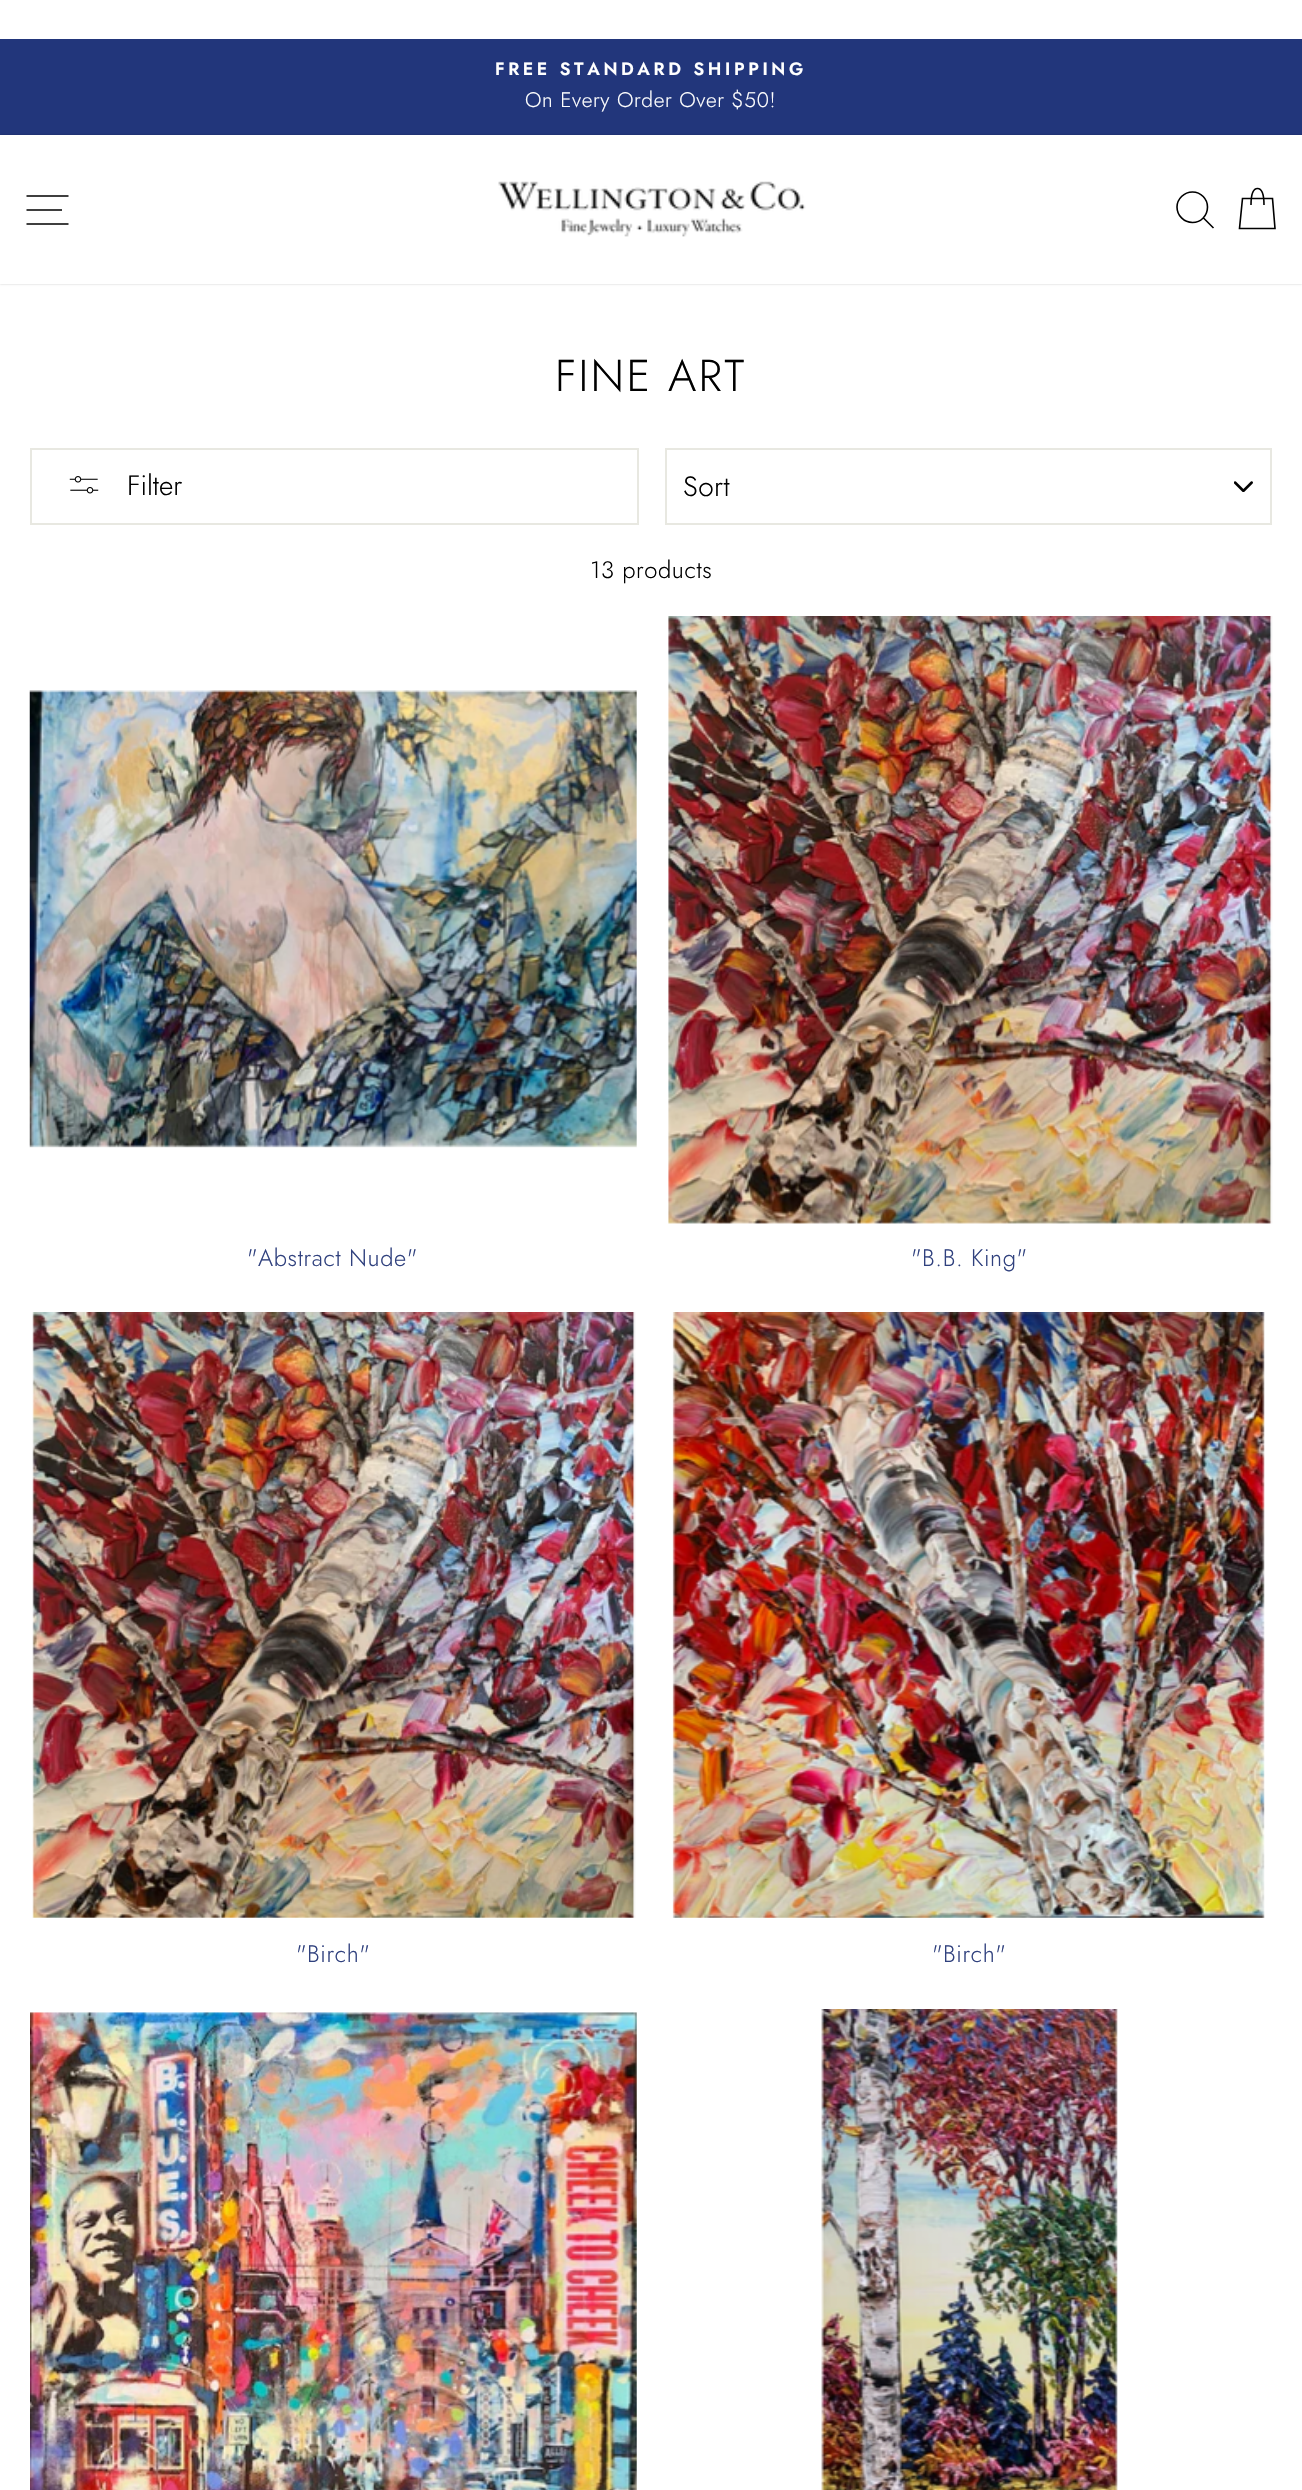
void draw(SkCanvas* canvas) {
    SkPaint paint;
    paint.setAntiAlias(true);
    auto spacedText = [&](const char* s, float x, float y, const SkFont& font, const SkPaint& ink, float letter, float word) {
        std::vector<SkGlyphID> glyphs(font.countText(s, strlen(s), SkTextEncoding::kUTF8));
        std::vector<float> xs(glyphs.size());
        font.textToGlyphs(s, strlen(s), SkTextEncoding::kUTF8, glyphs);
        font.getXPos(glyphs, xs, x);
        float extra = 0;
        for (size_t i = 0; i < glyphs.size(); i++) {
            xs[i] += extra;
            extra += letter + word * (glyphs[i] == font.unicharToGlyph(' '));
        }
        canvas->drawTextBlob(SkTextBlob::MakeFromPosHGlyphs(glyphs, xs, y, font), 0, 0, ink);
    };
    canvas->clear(0xFFFFFFFF);
    paint.setColor(0xFF22367B);
    canvas->drawRect(SkRect::MakeXYWH(0, 39, 1302, 96), paint);
    SkFont font1(fontMgr->matchFamilyStyle("Jost", SkFontStyle(600, SkFontStyle::kNormal_Width, SkFontStyle::kUpright_Slant)), 17.8f);
    font1.setSubpixel(true);
    paint.setColor(0xFFFFFFFF);
    spacedText("FREE STANDARD SHIPPING", 495, 75, font1, paint, 3.6f, 0);
    SkFont font2(fontMgr->matchFamilyStyle("Jost", SkFontStyle(300, SkFontStyle::kNormal_Width, SkFontStyle::kUpright_Slant)), 21);
    font2.setSubpixel(true);
    spacedText("On Every Order Over $50!", 525, 107, font2, paint, 0.6f, 0);
    paint.setColor(0x33000000);
    paint.setMaskFilter(SkMaskFilter::MakeBlur(kNormal_SkBlurStyle, 1));
    canvas->drawRect(SkRect::MakeXYWH(0, 135, 1302, 149), paint);
    paint.setMaskFilter(nullptr);
    paint.setColor(0xFFFFFFFF);
    canvas->drawRect(SkRect::MakeXYWH(0, 135, 1302, 149), paint);
    paint.setStyle(SkPaint::kStroke_Style);
    paint.setStrokeWidth(1.6f);
    paint.setColor(0xFF000000);
    canvas->drawPath(SkPathBuilder().moveTo(26.5f, 196).lineTo(68.5f, 196).moveTo(26.5f, 210).lineTo(62, 210).moveTo(26.5f, 224).lineTo(68.5f, 224).detach(), paint);
    canvas->drawImageRect(SkImages::DeferredFromEncodedData(SkData::MakeFromFileName("img1.png")), SkRect::MakeXYWH(498, 181, 308, 56), SkSamplingOptions());
    canvas->drawPath(SkPathBuilder().moveTo(1207.5f, 207).cubicTo(1207.5f, 215.5f, 1201, 222.5f, 1192.5f, 222.5f).cubicTo(1184, 222.5f, 1177, 215.5f, 1177, 207).cubicTo(1177, 199, 1184, 192, 1192.5f, 192).cubicTo(1201, 192, 1207.5f, 199, 1207.5f, 207).close().moveTo(1213.5f, 228).lineTo(1203.5f, 218).detach(), paint);
    canvas->drawPath(SkPathBuilder().moveTo(1251, 205).cubicTo(1251, 192, 1253.5f, 188.5f, 1257.5f, 188.5f).cubicTo(1261, 188.5f, 1264, 192, 1264, 205).moveTo(1242.5f, 198.5f).lineTo(1272.5f, 198.5f).lineTo(1275, 228.5f).lineTo(1239.5f, 228.5f).close().detach(), paint);
    SkFont font3(fontMgr->matchFamilyStyle("Jost", SkFontStyle(300, SkFontStyle::kNormal_Width, SkFontStyle::kUpright_Slant)), 44.5f);
    font3.setSubpixel(true);
    paint.setStyle(SkPaint::kFill_Style);
    spacedText("FINE ART", 555, 391, font3, paint, 2.25f, 0);
    paint.setStyle(SkPaint::kStroke_Style);
    paint.setStrokeWidth(2);
    paint.setColor(0xFFE8E8E1);
    canvas->drawRect(SkRect::MakeXYWH(31, 449, 607, 75), paint);
    canvas->drawImageRect(SkImages::DeferredFromEncodedData(SkData::MakeFromFileName("img2.png")), SkRect::MakeXYWH(69, 476, 30, 18), SkSamplingOptions());
    SkFont font4(fontMgr->matchFamilyStyle("Jost", SkFontStyle(300, SkFontStyle::kNormal_Width, SkFontStyle::kUpright_Slant)), 28);
    font4.setSubpixel(true);
    paint.setStyle(SkPaint::kFill_Style);
    paint.setColor(0xFF000000);
    canvas->drawString("Filter", 127, 495, font4, paint);
    canvas->drawImageRect(SkImages::DeferredFromEncodedData(SkData::MakeFromFileName("img3.png")), SkRect::MakeXYWH(1234, 481, 19, 11), SkSamplingOptions());
    paint.setStyle(SkPaint::kStroke_Style);
    paint.setColor(0xFFE8E8E1);
    canvas->drawRect(SkRect::MakeXYWH(666, 449, 605, 75), paint);
    paint.setStyle(SkPaint::kFill_Style);
    paint.setColor(0xFF000000);
    spacedText("Sort", 683, 496, font4, paint, 0.5f, 0);
    SkFont font5(fontMgr->matchFamilyStyle("Jost", SkFontStyle(300, SkFontStyle::kNormal_Width, SkFontStyle::kUpright_Slant)), 23.75f);
    font5.setSubpixel(true);
    spacedText("13 products", 590, 578, font5, paint, 0.6f, 0);
    canvas->drawImageRect(SkImages::DeferredFromEncodedData(SkData::MakeFromFileName("img4.png")), SkRect::MakeXYWH(29, 690, 608, 458), SkSamplingOptions());
    paint.setColor(0xFF30417E);
    spacedText("\"Abstract Nude\"", 247, 1266, font5, paint, 0.6f, 0);
    canvas->drawImageRect(SkImages::DeferredFromEncodedData(SkData::MakeFromFileName("img5.png")), SkRect::MakeXYWH(668, 616, 605, 608), SkSamplingOptions());
    spacedText("\"B.B. King\"", 911, 1266, font5, paint, 0.6f, 0);
    canvas->drawImageRect(SkImages::DeferredFromEncodedData(SkData::MakeFromFileName("img6.png")), SkRect::MakeXYWH(32, 1312, 604, 606), SkSamplingOptions());
    spacedText("\"Birch\"", 296, 1962, font5, paint, 0.6f, 0);
    canvas->drawImageRect(SkImages::DeferredFromEncodedData(SkData::MakeFromFileName("img7.png")), SkRect::MakeXYWH(672, 1312, 593, 606), SkSamplingOptions());
    spacedText("\"Birch\"", 932, 1962, font5, paint, 0.6f, 0);
    canvas->drawImageRect(SkImages::DeferredFromEncodedData(SkData::MakeFromFileName("img8.png")), SkRect::MakeXYWH(30, 2012, 607, 478), SkSamplingOptions());
    canvas->drawImageRect(SkImages::DeferredFromEncodedData(SkData::MakeFromFileName("img9.png")), SkRect::MakeXYWH(821, 2009, 297, 481), SkSamplingOptions());
}
